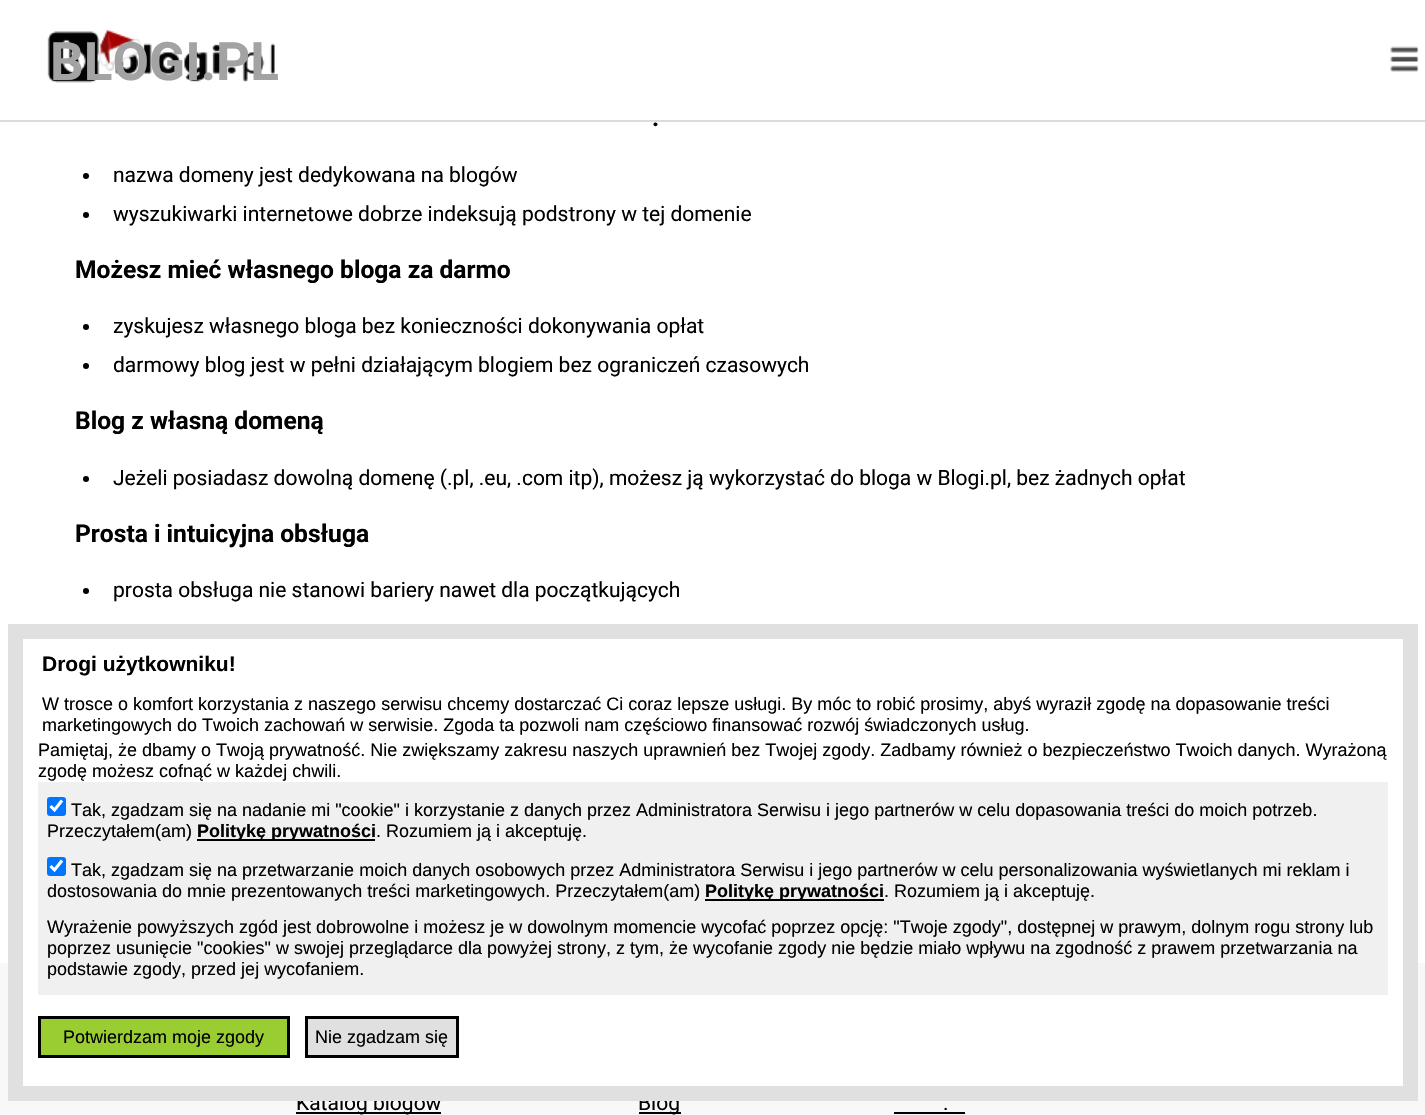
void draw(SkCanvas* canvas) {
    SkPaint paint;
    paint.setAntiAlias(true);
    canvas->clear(0xFFF8F8F8);
    paint.setColor(0xFFFFFFFF);
    canvas->drawRect(SkRect::MakeXYWH(0, 0, 1425, 120), paint);
    paint.setColor(0xFFDCDCDC);
    canvas->drawRect(SkRect::MakeXYWH(0, 120, 1425, 2), paint);
    canvas->drawImageRect(SkImages::DeferredFromEncodedData(SkData::MakeFromFileName("img1.png")), SkRect::MakeXYWH(47, 30, 228, 53), SkSamplingOptions());
    SkFont font1(fontMgr->matchFamilyStyle("Roboto", SkFontStyle::Bold()), 53);
    font1.setSubpixel(true);
    paint.setColor(0xFFA4A3A3);
    canvas->drawString("BLOGI.PL", 50, 80, font1, paint);
    canvas->drawImageRect(SkImages::DeferredFromEncodedData(SkData::MakeFromFileName("img2.png")), SkRect::MakeXYWH(1390, 46, 29, 26), SkSamplingOptions());
    paint.setColor(0xFFFFFFFF);
    canvas->drawRect(SkRect::MakeXYWH(0, 122, 1425, 841), paint);
    SkFont font2(fontMgr->matchFamilyStyle("Roboto", SkFontStyle::Bold()), 24.6f);
    font2.setSubpixel(true);
    paint.setColor(0xFF000000);
    canvas->drawString(".", 652, 126, font2, paint);
    canvas->drawCircle(86, 176, 3, paint);
    SkFont font3(fontMgr->matchFamilyStyle("Roboto", SkFontStyle::Normal()), 21);
    font3.setSubpixel(true);
    canvas->drawString("nazwa domeny jest dedykowana na blogów", 113, 182, font3, paint);
    canvas->drawCircle(86, 215, 3, paint);
    canvas->drawString("wyszukiwarki internetowe dobrze indeksują podstrony w tej domenie", 113, 221, font3, paint);
    canvas->drawString("Możesz mieć własnego bloga za darmo", 75, 278, font2, paint);
    canvas->drawCircle(86, 327, 3, paint);
    canvas->drawString("zyskujesz własnego bloga bez konieczności dokonywania opłat", 113, 333, font3, paint);
    canvas->drawCircle(86, 366, 3, paint);
    canvas->drawString("darmowy blog jest w pełni działającym blogiem bez ograniczeń czasowych", 113, 372, font3, paint);
    canvas->drawString("Blog z własną domeną", 75, 429, font2, paint);
    canvas->drawCircle(86, 479, 3, paint);
    canvas->drawString("Jeżeli posiadasz dowolną domenę (.pl, .eu, .com itp), możesz ją wykorzystać do bloga w Blogi.pl, bez żadnych opłat", 113, 485, font3, paint);
    canvas->drawString("Prosta i intuicyjna obsługa", 75, 542, font2, paint);
    canvas->drawCircle(86, 591, 3, paint);
    canvas->drawString("prosta obsługa nie stanowi bariery nawet dla początkujących", 113, 597, font3, paint);
    paint.setColor(0xFFFFFFFF);
    canvas->drawRect(SkRect::MakeXYWH(23, 963, 1380, 123), paint);
    paint.setColor(0xFF000000);
    canvas->drawRect(SkRect::MakeXYWH(296, 1112, 145, 2), paint);
    canvas->drawString("Katalog blogów", 296, 1110, font3, paint);
    canvas->drawRect(SkRect::MakeXYWH(639, 1112, 42, 2), paint);
    canvas->drawString("Blog", 638, 1110, font3, paint);
    paint.setStyle(SkPaint::kStroke_Style);
    paint.setStrokeWidth(15);
    paint.setColor(0xFFE0E0E0);
    canvas->drawRect(SkRect::MakeXYWH(15.5f, 631.5f, 1395, 462), paint);
    SkFont font4(fontMgr->matchFamilyStyle("Liberation Sans", SkFontStyle::Bold()), 21);
    font4.setSubpixel(true);
    paint.setStyle(SkPaint::kFill_Style);
    paint.setColor(0xFF000000);
    canvas->drawString("Drogi użytkowniku!", 42, 671, font4, paint);
    SkFont font5(fontMgr->matchFamilyStyle("Liberation Sans", SkFontStyle::Normal()), 18);
    font5.setSubpixel(true);
    canvas->drawString("W trosce o komfort korzystania z naszego serwisu chcemy dostarczać Ci coraz lepsze usługi. By móc to robić prosimy, abyś wyraził zgodę na dopasowanie treści", 42, 710, font5, paint);
    canvas->drawString("marketingowych do Twoich zachowań w serwisie. Zgoda ta pozwoli nam częściowo finansować rozwój świadczonych usług.", 42, 731, font5, paint);
    canvas->drawString("Pamiętaj, że dbamy o Twoją prywatność. Nie zwiększamy zakresu naszych uprawnień bez Twojej zgody. Zadbamy również o bezpieczeństwo Twoich danych. Wyrażoną", 38, 756, font5, paint);
    canvas->drawString("zgodę możesz cofnąć w każdej chwili.", 38, 777, font5, paint);
    paint.setColor(0xFFF0F0F0);
    canvas->drawRect(SkRect::MakeXYWH(38, 782, 1350, 213), paint);
    paint.setColor(0xFF0075FF);
    canvas->drawRoundRect(SkRect::MakeXYWH(47, 797, 19, 19), 3, 3, paint);
    paint.setStyle(SkPaint::kStroke_Style);
    paint.setStrokeWidth(3.1f);
    paint.setColor(0xFFFFFFFF);
    canvas->drawPath(SkPathBuilder().moveTo(50.5f, 806).lineTo(54.5f, 810).lineTo(62, 800.5f).detach(), paint);
    paint.setStyle(SkPaint::kFill_Style);
    paint.setColor(0xFF000000);
    canvas->drawString("Tak, zgadzam się na nadanie mi \"cookie\" i korzystanie z danych przez Administratora Serwisu i jego partnerów w celu dopasowania treści do moich potrzeb.", 71, 816, font5, paint);
    canvas->drawString("Przeczytałem(am)", 47, 837, font5, paint);
    canvas->drawRect(SkRect::MakeXYWH(197, 839, 178, 2), paint);
    SkFont font6(fontMgr->matchFamilyStyle("Liberation Sans", SkFontStyle::Bold()), 18);
    font6.setSubpixel(true);
    canvas->drawString("Politykę prywatności", 197, 837, font6, paint);
    canvas->drawString(". Rozumiem ją i akceptuję.", 376, 837, font5, paint);
    paint.setColor(0xFF0075FF);
    canvas->drawRoundRect(SkRect::MakeXYWH(47, 857, 19, 19), 3, 3, paint);
    paint.setStyle(SkPaint::kStroke_Style);
    paint.setColor(0xFFFFFFFF);
    canvas->drawPath(SkPathBuilder().moveTo(50.5f, 866).lineTo(54.5f, 870).lineTo(62, 860.5f).detach(), paint);
    paint.setStyle(SkPaint::kFill_Style);
    paint.setColor(0xFF000000);
    canvas->drawString("Tak, zgadzam się na przetwarzanie moich danych osobowych przez Administratora Serwisu i jego partnerów w celu personalizowania wyświetlanych mi reklam i", 71, 876, font5, paint);
    canvas->drawString("dostosowania do mnie prezentowanych treści marketingowych. Przeczytałem(am)", 47, 897, font5, paint);
    canvas->drawRect(SkRect::MakeXYWH(705, 899, 179, 2), paint);
    canvas->drawString("Politykę prywatności", 705, 897, font6, paint);
    canvas->drawString(". Rozumiem ją i akceptuję.", 884, 897, font5, paint);
    canvas->drawString("Wyrażenie powyższych zgód jest dobrowolne i możesz je w dowolnym momencie wycofać poprzez opcję: \"Twoje zgody\", dostępnej w prawym, dolnym rogu strony lub", 47, 933, font5, paint);
    canvas->drawString("poprzez usunięcie \"cookies\" w swojej przeglądarce dla powyżej strony, z tym, że wycofanie zgody nie będzie miało wpływu na zgodność z prawem przetwarzania na", 47, 954, font5, paint);
    canvas->drawString("podstawie zgody, przed jej wycofaniem.", 47, 975, font5, paint);
    paint.setColor(0xFF9ACD32);
    canvas->drawRect(SkRect::MakeXYWH(39.5f, 1017.5f, 249, 39), paint);
    paint.setStyle(SkPaint::kStroke_Style);
    paint.setStrokeWidth(3);
    paint.setColor(0xFF000000);
    canvas->drawRect(SkRect::MakeXYWH(39.5f, 1017.5f, 249, 39), paint);
    paint.setStyle(SkPaint::kFill_Style);
    canvas->drawString("Potwierdzam moje zgody", 63, 1043, font5, paint);
    paint.setColor(0xFFE0E0E0);
    canvas->drawRect(SkRect::MakeXYWH(306.5f, 1017.5f, 151, 39), paint);
    paint.setStyle(SkPaint::kStroke_Style);
    paint.setColor(0xFF000000);
    canvas->drawRect(SkRect::MakeXYWH(306.5f, 1017.5f, 151, 39), paint);
    paint.setStyle(SkPaint::kFill_Style);
    canvas->drawString("Nie zgadzam się", 315, 1043, font5, paint);
    canvas->drawString(".", 943, 1110, font3, paint);
    canvas->drawRect(SkRect::MakeXYWH(894, 1112, 71, 2), paint);
}
